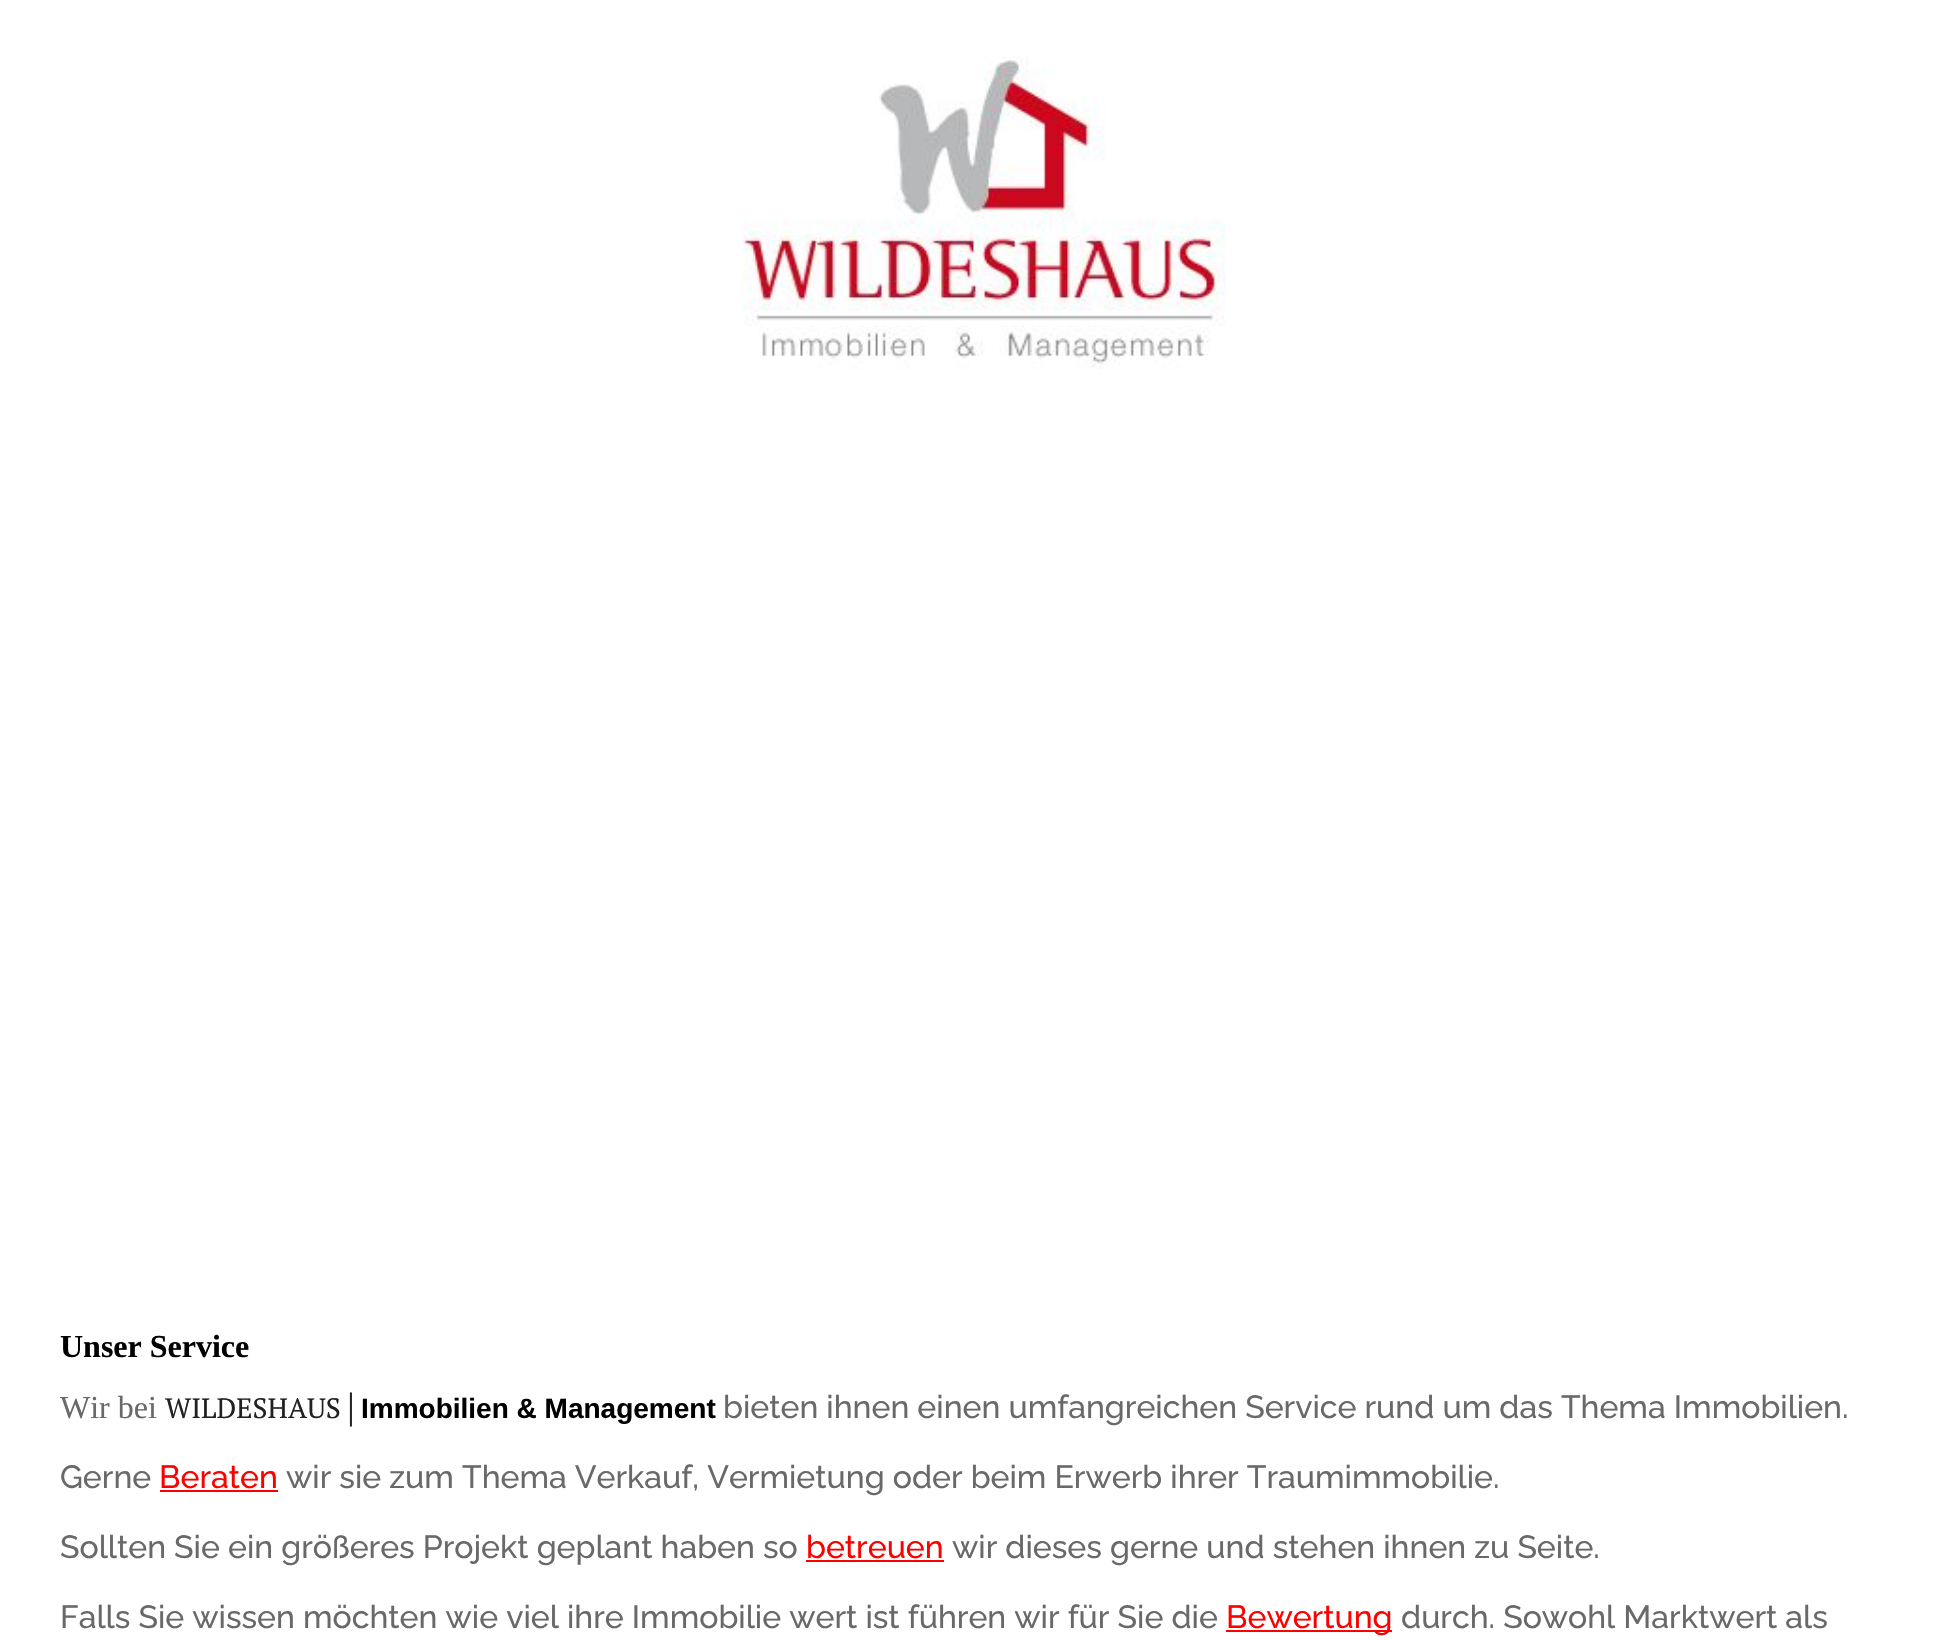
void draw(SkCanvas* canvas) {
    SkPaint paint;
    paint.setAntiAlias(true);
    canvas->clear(0xFFFFFFFF);
    canvas->drawImageRect(SkImages::DeferredFromEncodedData(SkData::MakeFromFileName("img1.png")), SkRect::MakeXYWH(742, 55, 484, 315), SkSamplingOptions());
    SkFont font1(fontMgr->matchFamilyStyle("Liberation Serif", SkFontStyle::Bold()), 32);
    font1.setSubpixel(true);
    paint.setColor(0xFF000000);
    canvas->drawString("Unser Service", 60, 1357, font1, paint);
    SkFont font2(fontMgr->matchFamilyStyle("Liberation Serif", SkFontStyle::Normal()), 32);
    font2.setSubpixel(true);
    paint.setColor(0xFF696969);
    canvas->drawString("Wir bei", 60, 1418, font2, paint);
    SkFont font3(fontMgr->matchFamilyStyle("PT Serif", SkFontStyle::Normal()), 28);
    font3.setSubpixel(true);
    paint.setColor(0xFF222222);
    canvas->drawString("WILDESHAUS", 165, 1418, font3, paint);
    SkFont font4(fontMgr->matchFamilyStyle("Liberation Serif", SkFontStyle::Normal()), 28);
    font4.setSubpixel(true);
    canvas->drawString("│", 341, 1418, font4, paint);
    SkFont font5(fontMgr->matchFamilyStyle("Liberation Sans", SkFontStyle::Bold()), 28);
    font5.setSubpixel(true);
    paint.setColor(0xFF000000);
    canvas->drawString("Immobilien & Management", 361, 1418, font5, paint);
    SkFont font6(fontMgr->matchFamilyStyle("Raleway", SkFontStyle(500, SkFontStyle::kNormal_Width, SkFontStyle::kUpright_Slant)), 32);
    font6.setSubpixel(true);
    paint.setColor(0xFF696969);
    canvas->drawString("bieten ihnen einen umfangreichen Service rund um das Thema Immobilien.", 723, 1418, font6, paint);
    canvas->drawString("Gerne", 60, 1488, font6, paint);
    paint.setColor(0xFFFF0000);
    canvas->drawString("Beraten", 159, 1488, font6, paint);
    canvas->drawRect(SkRect::MakeXYWH(160, 1490, 118, 2), paint);
    paint.setColor(0xFF696969);
    canvas->drawString("wir sie zum Thema Verkauf, Vermietung oder beim Erwerb ihrer Traumimmobilie.", 286, 1488, font6, paint);
    canvas->drawString("Sollten Sie ein größeres Projekt geplant haben so", 60, 1558, font6, paint);
    paint.setColor(0xFFFF0000);
    canvas->drawString("betreuen", 806, 1558, font6, paint);
    canvas->drawRect(SkRect::MakeXYWH(806, 1560, 138, 2), paint);
    paint.setColor(0xFF696969);
    canvas->drawString("wir dieses gerne und stehen ihnen zu Seite.", 952, 1558, font6, paint);
    canvas->drawString("Falls Sie wissen möchten wie viel ihre Immobilie wert ist führen wir für Sie die", 60, 1628, font6, paint);
    paint.setColor(0xFFFF0000);
    canvas->drawRect(SkRect::MakeXYWH(1226, 1630, 166, 2), paint);
    canvas->drawString("Bewertung", 1226, 1628, font6, paint);
    paint.setColor(0xFF696969);
    canvas->drawString("durch. Sowohl Marktwert als", 1401, 1628, font6, paint);
}
